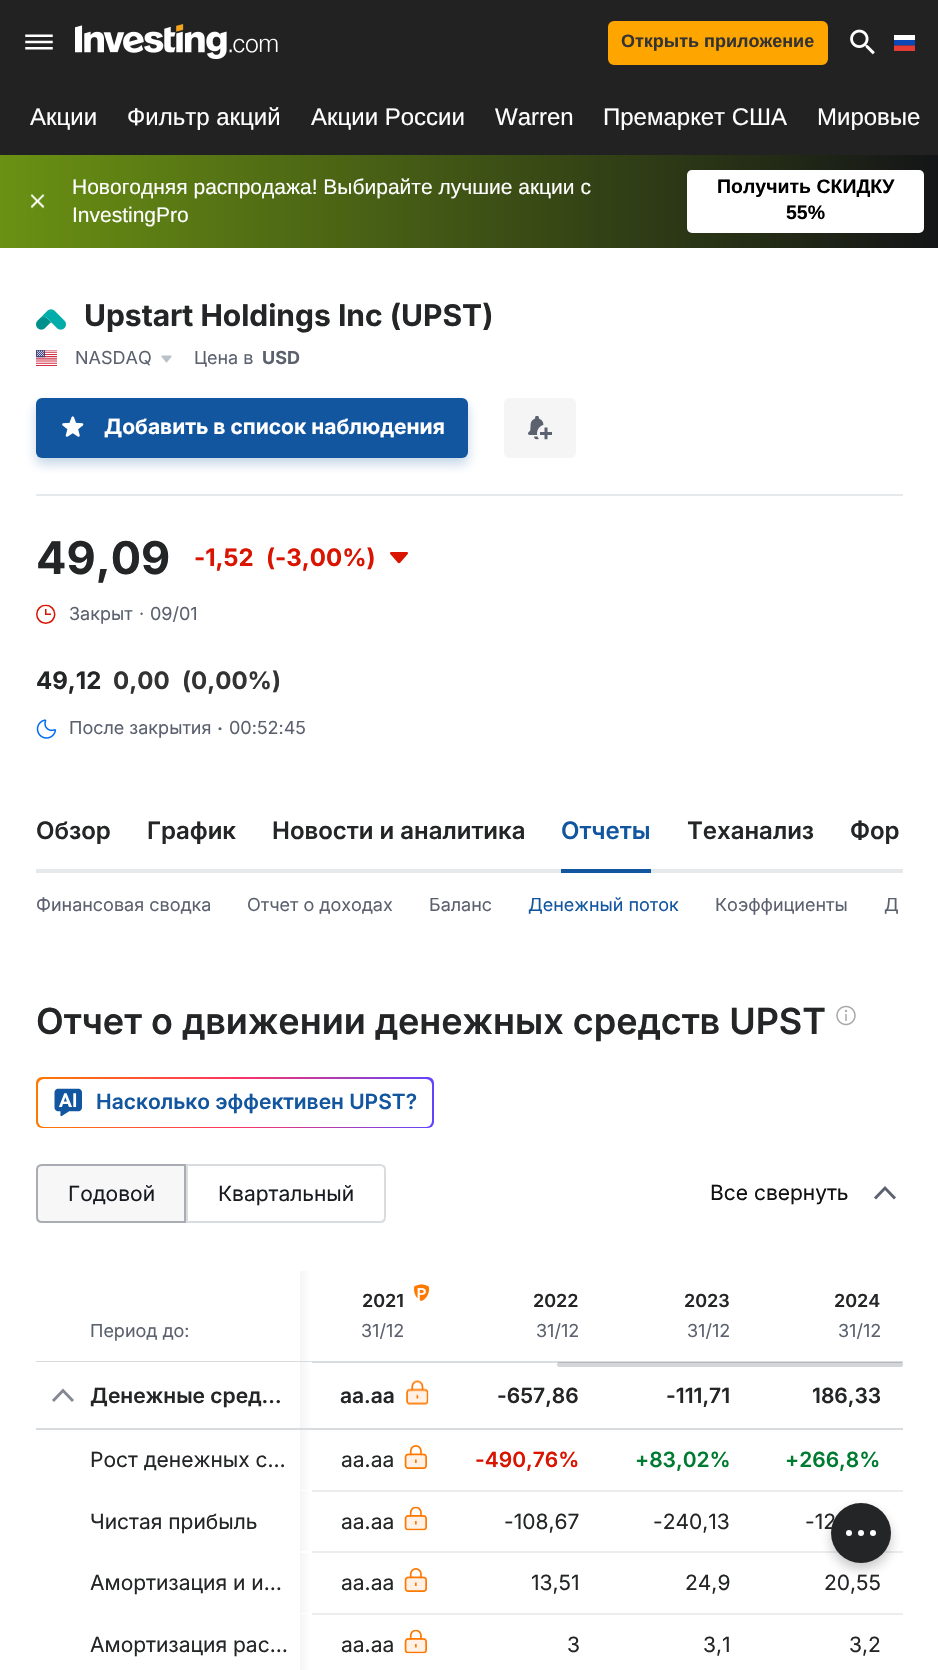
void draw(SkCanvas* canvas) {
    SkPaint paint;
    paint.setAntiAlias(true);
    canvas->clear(0xFFFFFFFF);
    paint.setColor(0xFF222222);
    canvas->drawRect(SkRect::MakeXYWH(0, 0, 938, 155), paint);
    canvas->drawImageRect(SkImages::DeferredFromEncodedData(SkData::MakeFromFileName("img1.png")), SkRect::MakeXYWH(25, 34, 28, 16), SkSamplingOptions());
    canvas->drawImageRect(SkImages::DeferredFromEncodedData(SkData::MakeFromFileName("img2.png")), SkRect::MakeXYWH(75, 24, 203, 36), SkSamplingOptions());
    paint.setColor(0xFFFFA500);
    canvas->drawRoundRect(SkRect::MakeXYWH(609, 22, 218, 42), 5, 5, paint);
    paint.setStyle(SkPaint::kStroke_Style);
    paint.setStrokeWidth(2);
    canvas->drawRoundRect(SkRect::MakeXYWH(609, 22, 218, 42), 5, 5, paint);
    SkFont font1(fontMgr->matchFamilyStyle("Liberation Sans", SkFontStyle::Bold()), 18);
    font1.setSubpixel(true);
    paint.setStyle(SkPaint::kFill_Style);
    paint.setColor(0xFF333333);
    canvas->drawString("Открыть приложение", 621, 47, font1, paint);
    canvas->drawImageRect(SkImages::DeferredFromEncodedData(SkData::MakeFromFileName("img3.png")), SkRect::MakeXYWH(850, 29, 25, 26), SkSamplingOptions());
    canvas->drawImageRect(SkImages::DeferredFromEncodedData(SkData::MakeFromFileName("img4.png")), SkRect::MakeXYWH(894, 35, 21, 16), SkSamplingOptions());
    SkFont font2(fontMgr->matchFamilyStyle("Liberation Sans", SkFontStyle::Normal()), 24);
    font2.setSubpixel(true);
    paint.setColor(0xFFFFFFFF);
    canvas->drawString("Акции", 30, 125, font2, paint);
    canvas->drawString("Фильтр акций", 127, 125, font2, paint);
    canvas->drawString("Акции России", 311, 125, font2, paint);
    canvas->drawString("Warren", 495, 125, font2, paint);
    canvas->drawString("Премаркет США", 603, 125, font2, paint);
    canvas->drawString("Мировые", 817, 125, font2, paint);
    {
        const SkColor colors[] = {0xFF6A9113, 0xFF141517};
        const float stops[] = {0, 1};
        const SkPoint ends[] = {{0, 201}, {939, 201}};
        paint.setShader(SkGradientShader::MakeLinear(ends, colors, stops, 2, SkTileMode::kClamp));
        paint.setAlpha(255);
    }
    canvas->drawRect(SkRect::MakeXYWH(0, 155, 938, 93), paint);
    canvas->drawImageRect(SkImages::DeferredFromEncodedData(SkData::MakeFromFileName("img5.png")), SkRect::MakeXYWH(30, 194, 15, 15), SkSamplingOptions());
    SkFont font3(fontMgr->matchFamilyStyle("Liberation Sans", SkFontStyle::Normal()), 21);
    font3.setSubpixel(true);
    paint.setShader(nullptr);
    paint.setColor(0xFFFFFFFF);
    canvas->drawString("Новогодняя распродажа! Выбирайте лучшие акции с", 72, 194, font3, paint);
    canvas->drawString("InvestingPro", 72, 222, font3, paint);
    canvas->drawRoundRect(SkRect::MakeXYWH(687, 170, 237, 63), 5, 5, paint);
    SkFont font4(fontMgr->matchFamilyStyle("Liberation Sans", SkFontStyle::Bold()), 19.5f);
    font4.setSubpixel(true);
    paint.setColor(0xFF000000);
    canvas->drawString("Получить СКИДКУ", 717, 193, font4, paint);
    canvas->drawString("55%", 786, 219, font4, paint);
    canvas->drawImageRect(SkImages::DeferredFromEncodedData(SkData::MakeFromFileName("img6.png")), SkRect::MakeXYWH(36, 309, 30, 21), SkSamplingOptions());
    SkFont font5(fontMgr->matchFamilyStyle("Inter", SkFontStyle::Bold()), 30);
    font5.setSubpixel(true);
    paint.setColor(0xFF232526);
    canvas->drawString("Upstart Holdings Inc (UPST)", 84, 326, font5, paint);
    canvas->drawImageRect(SkImages::DeferredFromEncodedData(SkData::MakeFromFileName("img7.png")), SkRect::MakeXYWH(36, 350, 21, 16), SkSamplingOptions());
    SkFont font6(fontMgr->matchFamilyStyle("Inter", SkFontStyle::Normal()), 18);
    font6.setSubpixel(true);
    paint.setColor(0xFF5B616E);
    canvas->drawString("NASDAQ", 75, 364, font6, paint);
    canvas->drawImageRect(SkImages::DeferredFromEncodedData(SkData::MakeFromFileName("img8.png")), SkRect::MakeXYWH(161, 355, 11, 8), SkSamplingOptions());
    canvas->drawString("Цена в", 194, 364, font6, paint);
    SkFont font7(fontMgr->matchFamilyStyle("Inter", SkFontStyle::Bold()), 18);
    font7.setSubpixel(true);
    canvas->drawString("USD", 262, 364, font7, paint);
    paint.setColor(0x401256A0);
    paint.setMaskFilter(SkMaskFilter::MakeBlur(kNormal_SkBlurStyle, 6));
    canvas->drawRoundRect(SkRect::MakeXYWH(36, 404, 432, 60), 6, 6, paint);
    paint.setMaskFilter(nullptr);
    paint.setColor(0xFF1256A0);
    canvas->drawRoundRect(SkRect::MakeXYWH(36, 398, 432, 60), 6, 6, paint);
    canvas->drawImageRect(SkImages::DeferredFromEncodedData(SkData::MakeFromFileName("img9.png")), SkRect::MakeXYWH(62, 416, 22, 21), SkSamplingOptions());
    SkFont font8(fontMgr->matchFamilyStyle("Inter", SkFontStyle::Bold()), 21);
    font8.setSubpixel(true);
    paint.setColor(0xFFFFFFFF);
    canvas->drawString("Добавить в список наблюдения", 104, 434, font8, paint);
    paint.setColor(0xFFF5F5F5);
    canvas->drawRoundRect(SkRect::MakeXYWH(504, 398, 72, 60), 6, 6, paint);
    canvas->drawImageRect(SkImages::DeferredFromEncodedData(SkData::MakeFromFileName("img10.png")), SkRect::MakeXYWH(528, 416, 24, 24), SkSamplingOptions());
    paint.setColor(0xFFE6E9EB);
    canvas->drawRect(SkRect::MakeXYWH(36, 494, 867, 2), paint);
    SkFont font9(fontMgr->matchFamilyStyle("Inter", SkFontStyle::Bold()), 45);
    font9.setSubpixel(true);
    paint.setColor(0xFF232526);
    canvas->drawString("49,09", 36, 574, font9, paint);
    SkFont font10(fontMgr->matchFamilyStyle("Inter", SkFontStyle::Bold()), 24);
    font10.setSubpixel(true);
    paint.setColor(0xFFD91400);
    canvas->drawString("-1,52", 194, 566, font10, paint);
    canvas->drawString("(-3,00%)", 266, 566, font10, paint);
    canvas->drawImageRect(SkImages::DeferredFromEncodedData(SkData::MakeFromFileName("img11.png")), SkRect::MakeXYWH(390, 552, 18, 12), SkSamplingOptions());
    canvas->drawImageRect(SkImages::DeferredFromEncodedData(SkData::MakeFromFileName("img12.png")), SkRect::MakeXYWH(36, 604, 20, 20), SkSamplingOptions());
    paint.setColor(0xFF5B616E);
    canvas->drawString("Закрыт", 69, 620, font6, paint);
    canvas->drawString("·", 139, 620, font6, paint);
    canvas->drawString("09/01", 150, 620, font6, paint);
    paint.setColor(0xFF232526);
    canvas->drawString("49,12", 36, 689, font10, paint);
    paint.setColor(0xFF333333);
    canvas->drawString("0,00", 113, 689, font10, paint);
    canvas->drawString("(0,00%)", 182, 689, font10, paint);
    canvas->drawImageRect(SkImages::DeferredFromEncodedData(SkData::MakeFromFileName("img13.png")), SkRect::MakeXYWH(36, 719, 21, 20), SkSamplingOptions());
    paint.setColor(0xFF5B616E);
    canvas->drawString("После закрытия", 69, 734, font6, paint);
    canvas->drawString("·", 217, 735, font7, paint);
    canvas->drawString("00:52:45", 229, 734, font6, paint);
    paint.setColor(0xFFE6E9EB);
    canvas->drawRect(SkRect::MakeXYWH(36, 869, 867, 4), paint);
    SkFont font11(fontMgr->matchFamilyStyle("Inter", SkFontStyle(600, SkFontStyle::kNormal_Width, SkFontStyle::kUpright_Slant)), 24);
    font11.setSubpixel(true);
    paint.setColor(0xFF232526);
    canvas->drawString("Обзор", 36, 839, font11, paint);
    canvas->drawString("График", 147, 839, font11, paint);
    canvas->drawString("Новости и аналитика", 272, 839, font11, paint);
    paint.setColor(0xFF1256A0);
    canvas->drawRect(SkRect::MakeXYWH(561, 869, 90, 4), paint);
    canvas->drawString("Отчеты", 561, 839, font11, paint);
    paint.setColor(0xFF232526);
    canvas->drawString("Теханализ", 687, 839, font11, paint);
    canvas->drawString("Фор", 850, 839, font11, paint);
    paint.setColor(0xFF5B616E);
    canvas->drawString("Финансовая сводка", 36, 911, font6, paint);
    canvas->drawString("Отчет о доходах", 247, 911, font6, paint);
    canvas->drawString("Баланс", 429, 911, font6, paint);
    paint.setColor(0xFF1256A0);
    canvas->drawString("Денежный поток", 528, 911, font6, paint);
    paint.setColor(0xFF5B616E);
    canvas->drawString("Коэффициенты", 715, 911, font6, paint);
    canvas->drawString("Д", 884, 911, font6, paint);
    SkFont font12(fontMgr->matchFamilyStyle("Inter", SkFontStyle(600, SkFontStyle::kNormal_Width, SkFontStyle::kUpright_Slant)), 36);
    font12.setSubpixel(true);
    paint.setColor(0xFF232526);
    canvas->drawString("Отчет о движении денежных средств UPST", 36, 1034, font12, paint);
    canvas->drawImageRect(SkImages::DeferredFromEncodedData(SkData::MakeFromFileName("img14.png")), SkRect::MakeXYWH(836, 1005, 20, 21), SkSamplingOptions());
    {
        const SkColor colors[] = {0xFFFF7901, 0xFFFF3363, 0xFF6244FF};
        const float stops[] = {0, 0.5f, 1};
        const SkPoint ends[] = {{36, 1103}, {434, 1103}};
        paint.setShader(SkGradientShader::MakeLinear(ends, colors, stops, 3, SkTileMode::kClamp));
        paint.setAlpha(255);
    }
    canvas->drawRoundRect(SkRect::MakeXYWH(36, 1077, 398, 51), 6, 6, paint);
    paint.setShader(nullptr);
    paint.setColor(0xFFFFFFFF);
    canvas->drawRoundRect(SkRect::MakeXYWH(38, 1079, 394, 48), 6, 6, paint);
    canvas->drawImageRect(SkImages::DeferredFromEncodedData(SkData::MakeFromFileName("img15.png")), SkRect::MakeXYWH(54, 1088, 28, 29), SkSamplingOptions());
    SkFont font13(fontMgr->matchFamilyStyle("Inter", SkFontStyle(600, SkFontStyle::kNormal_Width, SkFontStyle::kUpright_Slant)), 21);
    font13.setSubpixel(true);
    paint.setColor(0xFF1256A0);
    canvas->drawString("Насколько эффективен UPST?", 96, 1109, font13, paint);
    paint.setColor(0xFFF7F7F8);
    canvas->drawPath(SkPathBuilder().moveTo(42, 1165).lineTo(185, 1165).lineTo(185, 1222).lineTo(42, 1222).cubicTo(39, 1222, 37, 1220, 37, 1217).lineTo(37, 1170).cubicTo(37, 1167, 39, 1165, 42, 1165).close().detach(), paint);
    paint.setStyle(SkPaint::kStroke_Style);
    paint.setColor(0xFFA9ACB3);
    canvas->drawPath(SkPathBuilder().moveTo(42, 1165).lineTo(185, 1165).lineTo(185, 1222).lineTo(42, 1222).cubicTo(39, 1222, 37, 1220, 37, 1217).lineTo(37, 1170).cubicTo(37, 1167, 39, 1165, 42, 1165).close().detach(), paint);
    SkFont font14(fontMgr->matchFamilyStyle("Inter", SkFontStyle::Normal()), 21);
    font14.setSubpixel(true);
    paint.setStyle(SkPaint::kFill_Style);
    paint.setColor(0xFF181C21);
    canvas->drawString("Годовой", 68, 1201, font14, paint);
    paint.setStyle(SkPaint::kStroke_Style);
    paint.setColor(0xFFD9DCDF);
    canvas->drawPath(SkPathBuilder().moveTo(187, 1165).lineTo(380, 1165).cubicTo(383, 1165, 385, 1167, 385, 1170).lineTo(385, 1217).cubicTo(385, 1220, 383, 1222, 380, 1222).lineTo(187, 1222).close().detach(), paint);
    paint.setStyle(SkPaint::kFill_Style);
    paint.setColor(0xFF181C21);
    canvas->drawString("Квартальный", 218, 1201, font14, paint);
    paint.setColor(0xFF111111);
    canvas->drawString("Все свернуть", 710, 1200, font14, paint);
    paint.setStyle(SkPaint::kStroke_Style);
    paint.setStrokeWidth(2.9f);
    paint.setColor(0xFF5B616E);
    canvas->drawPath(SkPathBuilder().moveTo(875, 1198.5f).lineTo(885, 1188).lineTo(895, 1198.5f).detach(), paint);
    paint.setStyle(SkPaint::kFill_Style);
    canvas->drawString("Период до:", 90, 1337, font6, paint);
    {
        const SkColor colors[] = {0xFFF5F5F6, 0xFFFFFFFF};
        const float stops[] = {0, 1};
        const SkPoint ends[] = {{300, 1316}, {312, 1316}};
        paint.setShader(SkGradientShader::MakeLinear(ends, colors, stops, 2, SkTileMode::kClamp));
        paint.setAlpha(255);
    }
    canvas->drawRect(SkRect::MakeXYWH(300, 1271, 9, 90), paint);
    paint.setShader(nullptr);
    paint.setColor(0xFFD9DCDF);
    canvas->drawRect(SkRect::MakeXYWH(302, 1361, 601, 2), paint);
    SkFont font15(fontMgr->matchFamilyStyle("Inter", SkFontStyle(600, SkFontStyle::kNormal_Width, SkFontStyle::kUpright_Slant)), 18);
    font15.setSubpixel(true);
    paint.setColor(0xFF232526);
    canvas->drawString("2021", 362, 1307, font15, paint);
    paint.setColor(0xFF5B616E);
    canvas->drawString("31/12", 361, 1337, font6, paint);
    canvas->drawImageRect(SkImages::DeferredFromEncodedData(SkData::MakeFromFileName("img16.png")), SkRect::MakeXYWH(414, 1284, 15, 17), SkSamplingOptions());
    paint.setColor(0xFF232526);
    canvas->drawString("2022", 533, 1307, font15, paint);
    paint.setColor(0xFF5B616E);
    canvas->drawString("31/12", 536, 1337, font6, paint);
    paint.setColor(0xFF232526);
    canvas->drawString("2023", 684, 1307, font15, paint);
    paint.setColor(0xFF5B616E);
    canvas->drawString("31/12", 687, 1337, font6, paint);
    paint.setColor(0xFF232526);
    canvas->drawString("2024", 834, 1307, font15, paint);
    paint.setColor(0xFF5B616E);
    canvas->drawString("31/12", 838, 1337, font6, paint);
    paint.setColor(0xFFD9DCDF);
    canvas->drawRect(SkRect::MakeXYWH(36, 1361, 266, 1), paint);
    paint.setStyle(SkPaint::kStroke_Style);
    paint.setColor(0xFF848892);
    canvas->drawPath(SkPathBuilder().moveTo(53, 1401).lineTo(63, 1390.5f).lineTo(73, 1401).detach(), paint);
    paint.setStyle(SkPaint::kFill_Style);
    paint.setColor(0xFF232526);
    canvas->drawString("Денежные сред…", 90, 1403, font13, paint);
    {
        const SkColor colors[] = {0xFFF5F5F6, 0xFFFFFFFF};
        const float stops[] = {0, 1};
        const SkPoint ends[] = {{300, 1395}, {312, 1395}};
        paint.setShader(SkGradientShader::MakeLinear(ends, colors, stops, 2, SkTileMode::kClamp));
        paint.setAlpha(255);
    }
    canvas->drawRect(SkRect::MakeXYWH(300, 1362, 12, 66), paint);
    paint.setShader(nullptr);
    paint.setColor(0xFF232526);
    canvas->drawString("aa.aa", 340, 1403, font13, paint);
    canvas->drawImageRect(SkImages::DeferredFromEncodedData(SkData::MakeFromFileName("img17.png")), SkRect::MakeXYWH(406, 1380, 23, 25), SkSamplingOptions());
    canvas->drawString("-657,86", 497, 1403, font13, paint);
    canvas->drawString("-111,71", 666, 1403, font13, paint);
    canvas->drawString("186,33", 812, 1403, font13, paint);
    paint.setColor(0xFFD9DCDF);
    canvas->drawRect(SkRect::MakeXYWH(36, 1428, 867, 2), paint);
    paint.setColor(0xFF232526);
    canvas->drawString("Рост денежных с…", 90, 1467, font14, paint);
    {
        const SkColor colors[] = {0xFFF5F5F6, 0xFFFFFFFF};
        const float stops[] = {0, 1};
        const SkPoint ends[] = {{300, 1460}, {312, 1460}};
        paint.setShader(SkGradientShader::MakeLinear(ends, colors, stops, 2, SkTileMode::kClamp));
        paint.setAlpha(255);
    }
    canvas->drawRect(SkRect::MakeXYWH(300, 1430, 9, 60), paint);
    paint.setShader(nullptr);
    paint.setColor(0xFF232526);
    canvas->drawString("Чистая прибыль", 90, 1529, font14, paint);
    {
        const SkColor colors[] = {0xFFF5F5F6, 0xFFFFFFFF};
        const float stops[] = {0, 1};
        const SkPoint ends[] = {{300, 1521}, {312, 1521}};
        paint.setShader(SkGradientShader::MakeLinear(ends, colors, stops, 2, SkTileMode::kClamp));
        paint.setAlpha(255);
    }
    canvas->drawRect(SkRect::MakeXYWH(300, 1491, 9, 60), paint);
    paint.setShader(nullptr);
    paint.setColor(0xFF232526);
    canvas->drawString("Амортизация и и…", 90, 1590, font14, paint);
    {
        const SkColor colors[] = {0xFFF5F5F6, 0xFFFFFFFF};
        const float stops[] = {0, 1};
        const SkPoint ends[] = {{300, 1583}, {312, 1583}};
        paint.setShader(SkGradientShader::MakeLinear(ends, colors, stops, 2, SkTileMode::kClamp));
        paint.setAlpha(255);
    }
    canvas->drawRect(SkRect::MakeXYWH(300, 1553, 9, 60), paint);
    paint.setShader(nullptr);
    paint.setColor(0xFF232526);
    canvas->drawString("Амортизация рас…", 90, 1652, font14, paint);
    {
        const SkColor colors[] = {0xFFF5F5F6, 0xFFFFFFFF};
        const float stops[] = {0, 1};
        const SkPoint ends[] = {{300, 1644}, {312, 1644}};
        paint.setShader(SkGradientShader::MakeLinear(ends, colors, stops, 2, SkTileMode::kClamp));
        paint.setAlpha(255);
    }
    canvas->drawRect(SkRect::MakeXYWH(300, 1614, 9, 56), paint);
    paint.setShader(nullptr);
    paint.setColor(0xFFECEDEF);
    canvas->drawRect(SkRect::MakeXYWH(312, 1490, 591, 2), paint);
    paint.setColor(0xFF232526);
    canvas->drawString("aa.aa", 341, 1467, font14, paint);
    canvas->drawImageRect(SkImages::DeferredFromEncodedData(SkData::MakeFromFileName("img18.png")), SkRect::MakeXYWH(404, 1445, 23, 24), SkSamplingOptions());
    paint.setColor(0xFFD91400);
    canvas->drawString("-490,76%", 475, 1467, font13, paint);
    paint.setColor(0xFF007C32);
    canvas->drawString("+83,02%", 635, 1467, font13, paint);
    canvas->drawString("+266,8%", 785, 1467, font13, paint);
    paint.setColor(0xFFECEDEF);
    canvas->drawRect(SkRect::MakeXYWH(312, 1551, 591, 2), paint);
    paint.setColor(0xFF232526);
    canvas->drawString("aa.aa", 341, 1529, font14, paint);
    canvas->drawImageRect(SkImages::DeferredFromEncodedData(SkData::MakeFromFileName("img19.png")), SkRect::MakeXYWH(404, 1506, 23, 25), SkSamplingOptions());
    canvas->drawString("-108,67", 504, 1529, font14, paint);
    canvas->drawString("-240,13", 653, 1529, font14, paint);
    canvas->drawString("-12", 805, 1529, font14, paint);
    paint.setColor(0xFFECEDEF);
    canvas->drawRect(SkRect::MakeXYWH(312, 1613, 591, 2), paint);
    paint.setColor(0xFF232526);
    canvas->drawString("aa.aa", 341, 1590, font14, paint);
    canvas->drawImageRect(SkImages::DeferredFromEncodedData(SkData::MakeFromFileName("img18.png")), SkRect::MakeXYWH(404, 1568, 23, 24), SkSamplingOptions());
    canvas->drawString("13,51", 531, 1590, font14, paint);
    canvas->drawString("24,9", 685, 1590, font14, paint);
    canvas->drawString("20,55", 824, 1590, font14, paint);
    canvas->drawString("aa.aa", 341, 1652, font14, paint);
    canvas->drawImageRect(SkImages::DeferredFromEncodedData(SkData::MakeFromFileName("img19.png")), SkRect::MakeXYWH(404, 1629, 23, 25), SkSamplingOptions());
    canvas->drawString("3", 567, 1652, font14, paint);
    canvas->drawString("3,1", 703, 1652, font14, paint);
    canvas->drawString("3,2", 849, 1652, font14, paint);
    paint.setColor(0x33222D43);
    canvas->drawRoundRect(SkRect::MakeXYWH(557, 1362, 346, 5), 2.5f, 2.5f, paint);
    paint.setColor(0x40232526);
    paint.setMaskFilter(SkMaskFilter::MakeBlur(kNormal_SkBlurStyle, 6));
    canvas->drawRoundRect(SkRect::MakeXYWH(831, 1509, 60, 60), 30, 30, paint);
    paint.setMaskFilter(nullptr);
    paint.setColor(0xFF232526);
    canvas->drawCircle(861, 1533, 30, paint);
    paint.setColor(0xFFFFFFFF);
    canvas->drawCircle(873, 1533, 3, paint);
    canvas->drawCircle(849, 1533, 3, paint);
    canvas->drawCircle(861, 1533, 3, paint);
}
